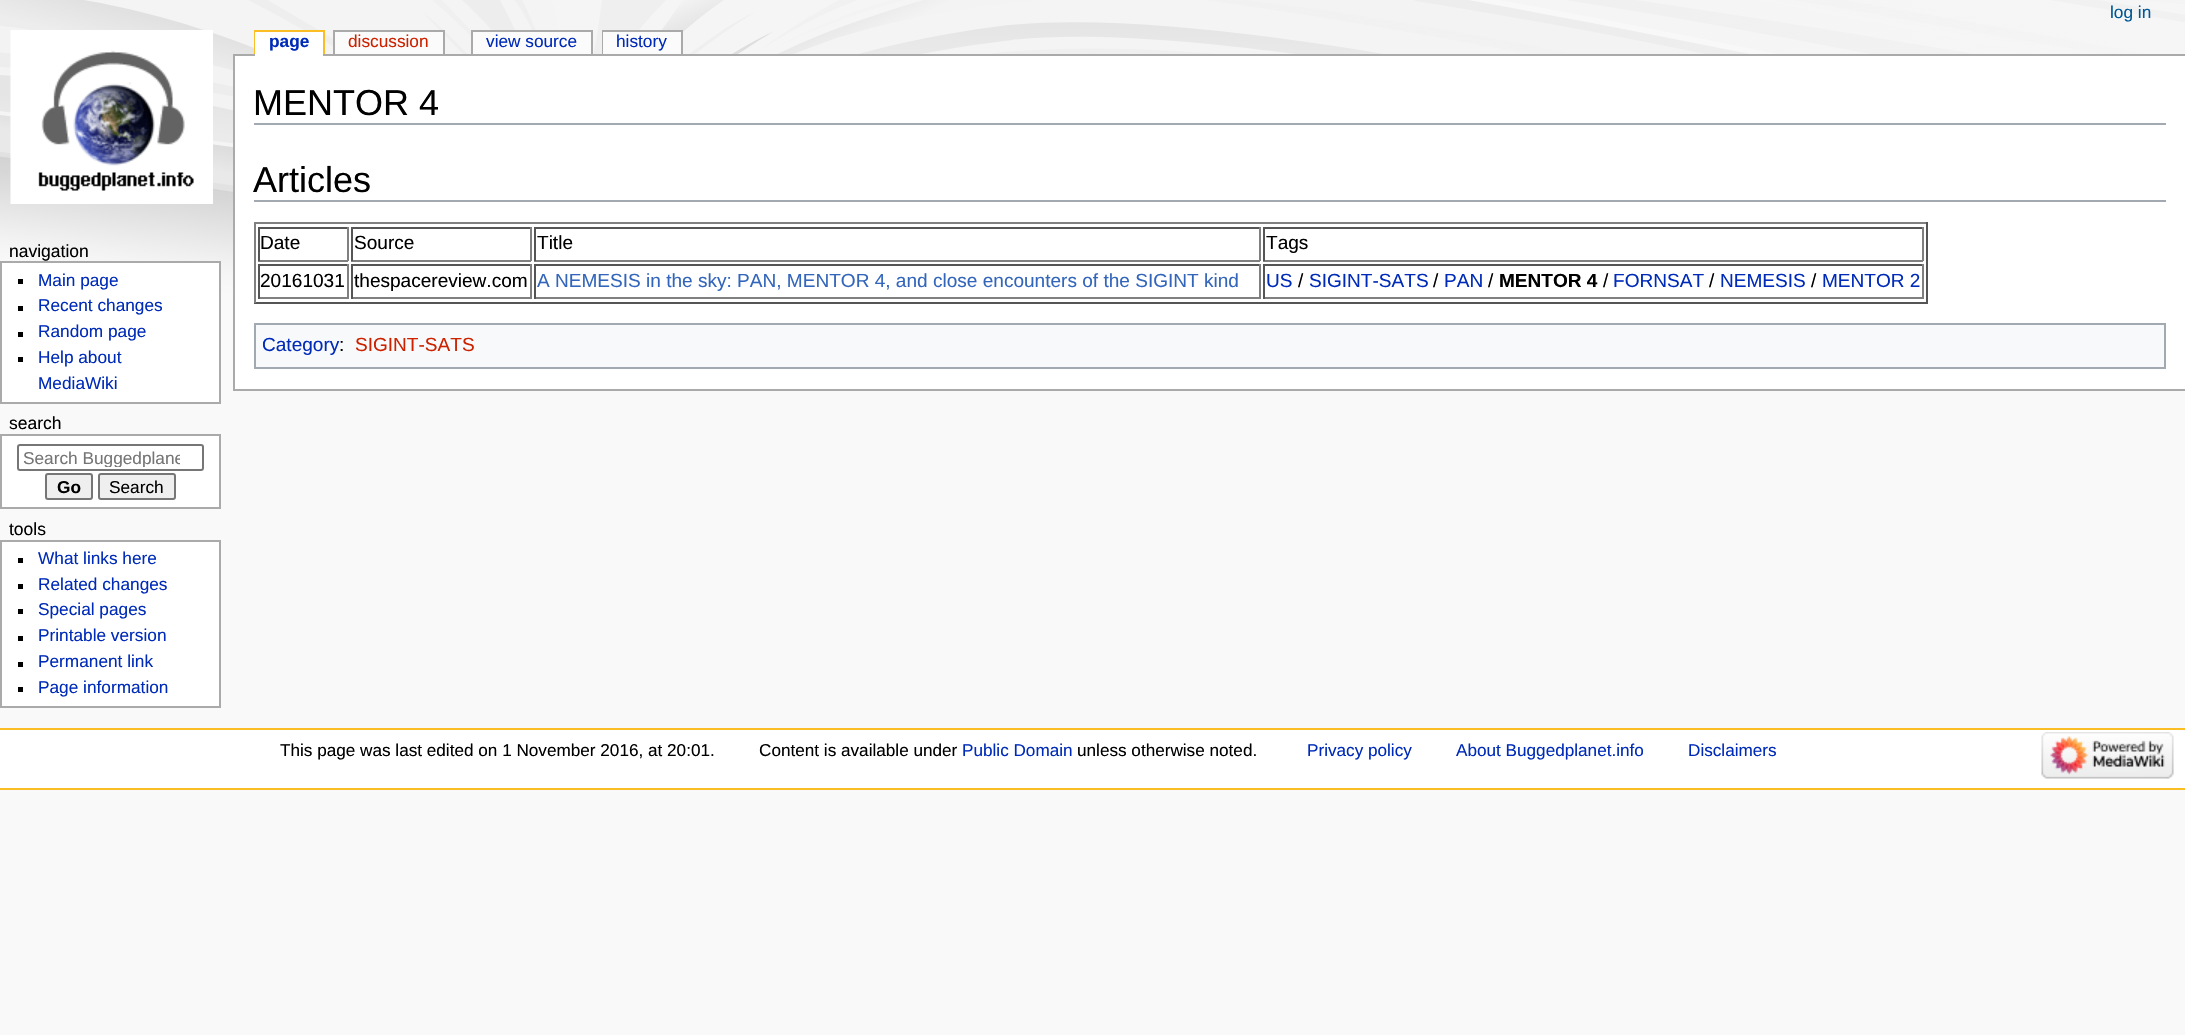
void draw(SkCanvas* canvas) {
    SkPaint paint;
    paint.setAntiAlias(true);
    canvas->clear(0xFFF9F9F9);
    canvas->drawImageRect(SkImages::DeferredFromEncodedData(SkData::MakeFromFileName("img1.png")), SkRect::MakeXYWH(0, 0, 2185, 315), SkSamplingOptions());
    SkFont font1(fontMgr->matchFamilyStyle("Liberation Sans", SkFontStyle::Normal()), 17.25f);
    font1.setSubpixel(true);
    paint.setColor(0xFF005896);
    canvas->drawString("log in", 2110, 18, font1, paint);
    canvas->drawImageRect(SkImages::DeferredFromEncodedData(SkData::MakeFromFileName("img2.png")), SkRect::MakeXYWH(10, 30, 203, 174), SkSamplingOptions());
    paint.setColor(0xFFFABD23);
    canvas->drawRect(SkRect::MakeXYWH(254, 30, 70, 2), paint);
    canvas->drawRect(SkRect::MakeXYWH(254, 30, 2, 24), paint);
    paint.setColor(0xFFAAAAAA);
    canvas->drawRect(SkRect::MakeXYWH(233, 54, 1952, 2), paint);
    paint.setColor(0xFFFFFFFF);
    canvas->drawRect(SkRect::MakeXYWH(255, 32, 68, 24), paint);
    SkFont font2(fontMgr->matchFamilyStyle("Liberation Sans", SkFontStyle::Bold()), 17.25f);
    font2.setSubpixel(true);
    paint.setColor(0xFF002BB8);
    canvas->drawString("page", 269, 47, font2, paint);
    paint.setColor(0xFFFABD23);
    canvas->drawRect(SkRect::MakeXYWH(323, 30, 2, 24), paint);
    paint.setColor(0xFFFBFBFB);
    canvas->drawRect(SkRect::MakeXYWH(335, 32, 108, 22), paint);
    paint.setColor(0xFFCC2200);
    canvas->drawString("discussion", 348, 47, font1, paint);
    paint.setColor(0xFFAAAAAA);
    canvas->drawRect(SkRect::MakeXYWH(333, 30, 111, 2), paint);
    canvas->drawRect(SkRect::MakeXYWH(443, 30, 2, 24), paint);
    canvas->drawRect(SkRect::MakeXYWH(333, 30, 2, 24), paint);
    paint.setColor(0xFFFBFBFB);
    canvas->drawRect(SkRect::MakeXYWH(473, 32, 118, 22), paint);
    paint.setColor(0xFF002BB8);
    canvas->drawString("view source", 486, 47, font1, paint);
    paint.setColor(0xFFAAAAAA);
    canvas->drawRect(SkRect::MakeXYWH(471, 30, 122, 2), paint);
    canvas->drawRect(SkRect::MakeXYWH(591, 30, 2, 24), paint);
    canvas->drawRect(SkRect::MakeXYWH(471, 30, 2, 24), paint);
    canvas->drawRect(SkRect::MakeXYWH(602, 30, 81, 2), paint);
    canvas->drawRect(SkRect::MakeXYWH(602, 30, 2, 24), paint);
    paint.setColor(0xFFFBFBFB);
    canvas->drawRect(SkRect::MakeXYWH(603, 32, 78, 22), paint);
    paint.setColor(0xFF002BB8);
    canvas->drawString("history", 616, 47, font1, paint);
    paint.setColor(0xFFAAAAAA);
    canvas->drawRect(SkRect::MakeXYWH(681, 30, 2, 24), paint);
    SkFont font3(fontMgr->matchFamilyStyle("Liberation Sans", SkFontStyle::Normal()), 17.5f);
    font3.setSubpixel(true);
    paint.setColor(0xFF000000);
    canvas->drawString("navigation", 9, 257, font3, paint);
    paint.setColor(0xFFFFFFFF);
    canvas->drawRect(SkRect::MakeXYWH(1, 262, 219, 141), paint);
    paint.setStyle(SkPaint::kStroke_Style);
    paint.setStrokeWidth(2);
    paint.setColor(0xFFAAAAAA);
    canvas->drawRect(SkRect::MakeXYWH(1, 262, 219, 141), paint);
    paint.setStyle(SkPaint::kFill_Style);
    paint.setColor(0xFF000000);
    canvas->drawRect(SkRect::MakeXYWH(18, 279, 5, 5), paint);
    paint.setColor(0xFF002BB8);
    canvas->drawString("Main page", 38, 286, font1, paint);
    paint.setColor(0xFF000000);
    canvas->drawRect(SkRect::MakeXYWH(18, 306, 5, 5), paint);
    paint.setColor(0xFF002BB8);
    canvas->drawString("Recent changes", 38, 311, font1, paint);
    paint.setColor(0xFF000000);
    canvas->drawRect(SkRect::MakeXYWH(18, 332, 5, 5), paint);
    paint.setColor(0xFF002BB8);
    canvas->drawString("Random page", 38, 337, font1, paint);
    paint.setColor(0xFF000000);
    canvas->drawRect(SkRect::MakeXYWH(18, 357, 5, 5), paint);
    paint.setColor(0xFF002BB8);
    canvas->drawString("Help about", 38, 363, font1, paint);
    canvas->drawString("MediaWiki", 38, 389, font1, paint);
    paint.setColor(0xFF000000);
    canvas->drawString("search", 9, 429, font3, paint);
    paint.setColor(0xFFFFFFFF);
    canvas->drawRect(SkRect::MakeXYWH(1, 435, 219, 73), paint);
    paint.setStyle(SkPaint::kStroke_Style);
    paint.setColor(0xFFAAAAAA);
    canvas->drawRect(SkRect::MakeXYWH(1, 435, 219, 73), paint);
    paint.setColor(0xFF767676);
    canvas->drawRoundRect(SkRect::MakeXYWH(18, 445, 185, 25), 2, 2, paint);
    canvas->save();
    canvas->clipRect(SkRect::MakeXYWH(23, 449, 157, 18));
    paint.setStyle(SkPaint::kFill_Style);
    paint.setColor(0xFF757575);
    canvas->drawString("Search Buggedplane", 23, 464, font1, paint);
    canvas->restore();
    paint.setColor(0xFFEFEFEF);
    canvas->drawRoundRect(SkRect::MakeXYWH(46, 474, 46, 25), 2, 2, paint);
    paint.setStyle(SkPaint::kStroke_Style);
    paint.setColor(0xFF767676);
    canvas->drawRoundRect(SkRect::MakeXYWH(46, 474, 46, 25), 2, 2, paint);
    paint.setStyle(SkPaint::kFill_Style);
    paint.setColor(0xFF000000);
    canvas->drawString("Go", 57, 493, font2, paint);
    paint.setColor(0xFFEFEFEF);
    canvas->drawRoundRect(SkRect::MakeXYWH(99, 474, 76, 25), 2, 2, paint);
    paint.setStyle(SkPaint::kStroke_Style);
    paint.setColor(0xFF767676);
    canvas->drawRoundRect(SkRect::MakeXYWH(99, 474, 76, 25), 2, 2, paint);
    paint.setStyle(SkPaint::kFill_Style);
    paint.setColor(0xFF000000);
    canvas->drawString("Search", 109, 493, font1, paint);
    canvas->drawString("tools", 9, 535, font3, paint);
    paint.setColor(0xFFFFFFFF);
    canvas->drawRect(SkRect::MakeXYWH(1, 541, 219, 166), paint);
    paint.setStyle(SkPaint::kStroke_Style);
    paint.setColor(0xFFAAAAAA);
    canvas->drawRect(SkRect::MakeXYWH(1, 541, 219, 166), paint);
    paint.setStyle(SkPaint::kFill_Style);
    paint.setColor(0xFF000000);
    canvas->drawRect(SkRect::MakeXYWH(18, 558, 5, 5), paint);
    paint.setColor(0xFF002BB8);
    canvas->drawString("What links here", 38, 564, font1, paint);
    paint.setColor(0xFF000000);
    canvas->drawRect(SkRect::MakeXYWH(18, 584, 5, 5), paint);
    paint.setColor(0xFF002BB8);
    canvas->drawString("Related changes", 38, 590, font1, paint);
    paint.setColor(0xFF000000);
    canvas->drawRect(SkRect::MakeXYWH(18, 609, 5, 5), paint);
    paint.setColor(0xFF002BB8);
    canvas->drawString("Special pages", 38, 615, font1, paint);
    paint.setColor(0xFF000000);
    canvas->drawRect(SkRect::MakeXYWH(18, 636, 5, 5), paint);
    paint.setColor(0xFF002BB8);
    canvas->drawString("Printable version", 38, 641, font1, paint);
    paint.setColor(0xFF000000);
    canvas->drawRect(SkRect::MakeXYWH(18, 662, 5, 5), paint);
    paint.setColor(0xFF002BB8);
    canvas->drawString("Permanent link", 38, 667, font1, paint);
    paint.setColor(0xFF000000);
    canvas->drawRect(SkRect::MakeXYWH(18, 687, 5, 5), paint);
    paint.setColor(0xFF002BB8);
    canvas->drawString("Page information", 38, 693, font1, paint);
    paint.setColor(0xFFFFFFFF);
    canvas->drawRect(SkRect::MakeXYWH(235, 56, 1950, 333), paint);
    paint.setColor(0xFFAAAAAA);
    canvas->drawRect(SkRect::MakeXYWH(233, 389, 1952, 2), paint);
    canvas->drawRect(SkRect::MakeXYWH(233, 54, 2, 336), paint);
    paint.setColor(0xFFA2A9B1);
    canvas->drawRect(SkRect::MakeXYWH(254, 123, 1912, 2), paint);
    SkFont font4(fontMgr->matchFamilyStyle("Liberation Sans", SkFontStyle::Normal()), 36);
    font4.setSubpixel(true);
    paint.setColor(0xFF000000);
    canvas->drawString("MENTOR 4", 253, 115, font4, paint);
    paint.setColor(0xFFA2A9B1);
    canvas->drawRect(SkRect::MakeXYWH(254, 200, 1912, 2), paint);
    paint.setColor(0xFF000000);
    canvas->drawString("Articles", 253, 192, font4, paint);
    paint.setColor(0xFF808080);
    canvas->drawRect(SkRect::MakeXYWH(254, 222, 1674, 2), paint);
    paint.setColor(0xFF555555);
    canvas->drawRect(SkRect::MakeXYWH(1926, 222, 2, 81), paint);
    canvas->drawRect(SkRect::MakeXYWH(254, 302, 1674, 2), paint);
    paint.setColor(0xFF808080);
    canvas->drawRect(SkRect::MakeXYWH(254, 222, 2, 81), paint);
    paint.setColor(0xFF555555);
    canvas->drawRect(SkRect::MakeXYWH(258, 227, 90, 2), paint);
    paint.setColor(0xFF808080);
    canvas->drawRect(SkRect::MakeXYWH(347, 227, 2, 34), paint);
    canvas->drawRect(SkRect::MakeXYWH(258, 260, 90, 2), paint);
    paint.setColor(0xFF555555);
    canvas->drawRect(SkRect::MakeXYWH(258, 227, 2, 34), paint);
    SkFont font5(fontMgr->matchFamilyStyle("Liberation Sans", SkFontStyle::Normal()), 19.05f);
    font5.setSubpixel(true);
    paint.setColor(0xFF000000);
    canvas->drawString("Date", 260, 249, font5, paint);
    paint.setColor(0xFF555555);
    canvas->drawRect(SkRect::MakeXYWH(351, 227, 180, 2), paint);
    paint.setColor(0xFF808080);
    canvas->drawRect(SkRect::MakeXYWH(530, 227, 2, 34), paint);
    canvas->drawRect(SkRect::MakeXYWH(351, 260, 180, 2), paint);
    paint.setColor(0xFF555555);
    canvas->drawRect(SkRect::MakeXYWH(351, 227, 2, 34), paint);
    paint.setColor(0xFF000000);
    canvas->drawString("Source", 354, 249, font5, paint);
    paint.setColor(0xFF555555);
    canvas->drawRect(SkRect::MakeXYWH(534, 227, 726, 2), paint);
    paint.setColor(0xFF808080);
    canvas->drawRect(SkRect::MakeXYWH(1259, 227, 2, 34), paint);
    canvas->drawRect(SkRect::MakeXYWH(534, 260, 726, 2), paint);
    paint.setColor(0xFF555555);
    canvas->drawRect(SkRect::MakeXYWH(534, 227, 2, 34), paint);
    paint.setColor(0xFF000000);
    canvas->drawString("Title", 537, 249, font5, paint);
    paint.setColor(0xFF555555);
    canvas->drawRect(SkRect::MakeXYWH(1263, 227, 660, 2), paint);
    paint.setColor(0xFF808080);
    canvas->drawRect(SkRect::MakeXYWH(1922, 227, 2, 34), paint);
    canvas->drawRect(SkRect::MakeXYWH(1263, 260, 660, 2), paint);
    paint.setColor(0xFF555555);
    canvas->drawRect(SkRect::MakeXYWH(1263, 227, 2, 34), paint);
    paint.setColor(0xFF000000);
    canvas->drawString("Tags", 1266, 249, font5, paint);
    paint.setColor(0xFF555555);
    canvas->drawRect(SkRect::MakeXYWH(258, 264, 90, 2), paint);
    paint.setColor(0xFF808080);
    canvas->drawRect(SkRect::MakeXYWH(347, 264, 2, 35), paint);
    canvas->drawRect(SkRect::MakeXYWH(258, 297, 90, 2), paint);
    paint.setColor(0xFF555555);
    canvas->drawRect(SkRect::MakeXYWH(258, 264, 2, 35), paint);
    paint.setColor(0xFF000000);
    canvas->drawString("20161031", 260, 287, font5, paint);
    paint.setColor(0xFF555555);
    canvas->drawRect(SkRect::MakeXYWH(351, 264, 180, 2), paint);
    paint.setColor(0xFF808080);
    canvas->drawRect(SkRect::MakeXYWH(530, 264, 2, 35), paint);
    canvas->drawRect(SkRect::MakeXYWH(351, 297, 180, 2), paint);
    paint.setColor(0xFF555555);
    canvas->drawRect(SkRect::MakeXYWH(351, 264, 2, 35), paint);
    paint.setColor(0xFF000000);
    canvas->drawString("thespacereview.com", 354, 287, font5, paint);
    paint.setColor(0xFF555555);
    canvas->drawRect(SkRect::MakeXYWH(534, 264, 726, 2), paint);
    paint.setColor(0xFF808080);
    canvas->drawRect(SkRect::MakeXYWH(1259, 264, 2, 35), paint);
    canvas->drawRect(SkRect::MakeXYWH(534, 297, 726, 2), paint);
    paint.setColor(0xFF555555);
    canvas->drawRect(SkRect::MakeXYWH(534, 264, 2, 35), paint);
    paint.setColor(0xFF3366BB);
    canvas->drawString("A NEMESIS in the sky: PAN, MENTOR 4, and close encounters of the SIGINT kind", 537, 287, font5, paint);
    paint.setColor(0xFF555555);
    canvas->drawRect(SkRect::MakeXYWH(1263, 264, 660, 2), paint);
    paint.setColor(0xFF808080);
    canvas->drawRect(SkRect::MakeXYWH(1922, 264, 2, 35), paint);
    canvas->drawRect(SkRect::MakeXYWH(1263, 297, 660, 2), paint);
    paint.setColor(0xFF555555);
    canvas->drawRect(SkRect::MakeXYWH(1263, 264, 2, 35), paint);
    paint.setColor(0xFF002BB8);
    canvas->drawString("US", 1266, 287, font5, paint);
    paint.setColor(0xFF000000);
    canvas->drawString("/", 1298, 287, font5, paint);
    paint.setColor(0xFF002BB8);
    canvas->drawString("SIGINT-SATS", 1309, 287, font5, paint);
    paint.setColor(0xFF000000);
    canvas->drawString("/", 1433, 287, font5, paint);
    paint.setColor(0xFF002BB8);
    canvas->drawString("PAN", 1444, 287, font5, paint);
    paint.setColor(0xFF000000);
    canvas->drawString("/", 1488, 287, font5, paint);
    SkFont font6(fontMgr->matchFamilyStyle("Liberation Sans", SkFontStyle::Bold()), 19.05f);
    font6.setSubpixel(true);
    canvas->drawString("MENTOR 4", 1499, 287, font6, paint);
    canvas->drawString("/", 1603, 287, font5, paint);
    paint.setColor(0xFF002BB8);
    canvas->drawString("FORNSAT", 1613, 287, font5, paint);
    paint.setColor(0xFF000000);
    canvas->drawString("/", 1709, 287, font5, paint);
    paint.setColor(0xFF002BB8);
    canvas->drawString("NEMESIS", 1720, 287, font5, paint);
    paint.setColor(0xFF000000);
    canvas->drawString("/", 1811, 287, font5, paint);
    paint.setColor(0xFF002BB8);
    canvas->drawString("MENTOR 2", 1822, 287, font5, paint);
    paint.setColor(0xFFF8F9FA);
    canvas->drawRect(SkRect::MakeXYWH(255, 324, 1910, 44), paint);
    paint.setStyle(SkPaint::kStroke_Style);
    paint.setColor(0xFFA2A9B1);
    canvas->drawRect(SkRect::MakeXYWH(255, 324, 1910, 44), paint);
    paint.setStyle(SkPaint::kFill_Style);
    paint.setColor(0xFF002BB8);
    canvas->drawString("Category", 262, 351, font5, paint);
    paint.setColor(0xFF000000);
    canvas->drawString(":", 339, 351, font5, paint);
    paint.setColor(0xFFCC2200);
    canvas->drawString("SIGINT-SATS", 355, 351, font5, paint);
    paint.setColor(0xFFFFFFFF);
    canvas->drawRect(SkRect::MakeXYWH(0, 730, 2185, 58), paint);
    paint.setColor(0xFFFABD23);
    canvas->drawRect(SkRect::MakeXYWH(0, 728, 2185, 2), paint);
    canvas->drawRect(SkRect::MakeXYWH(0, 788, 2185, 2), paint);
    SkFont font7(fontMgr->matchFamilyStyle("Liberation Sans", SkFontStyle::Normal()), 17.15f);
    font7.setSubpixel(true);
    paint.setColor(0xFF000000);
    canvas->drawString("This page was last edited on 1 November 2016, at 20:01.", 280, 756, font7, paint);
    canvas->drawString("Content is available under", 759, 756, font7, paint);
    paint.setColor(0xFF002BB8);
    canvas->drawString("Public Domain", 962, 756, font7, paint);
    paint.setColor(0xFF000000);
    canvas->drawString("unless otherwise noted.", 1077, 756, font7, paint);
    paint.setColor(0xFF002BB8);
    canvas->drawString("Privacy policy", 1307, 756, font7, paint);
    canvas->drawString("About Buggedplanet.info", 1456, 756, font7, paint);
    canvas->drawString("Disclaimers", 1688, 756, font7, paint);
    canvas->drawImageRect(SkImages::DeferredFromEncodedData(SkData::MakeFromFileName("img3.png")), SkRect::MakeXYWH(2041, 732, 133, 47), SkSamplingOptions());
}
